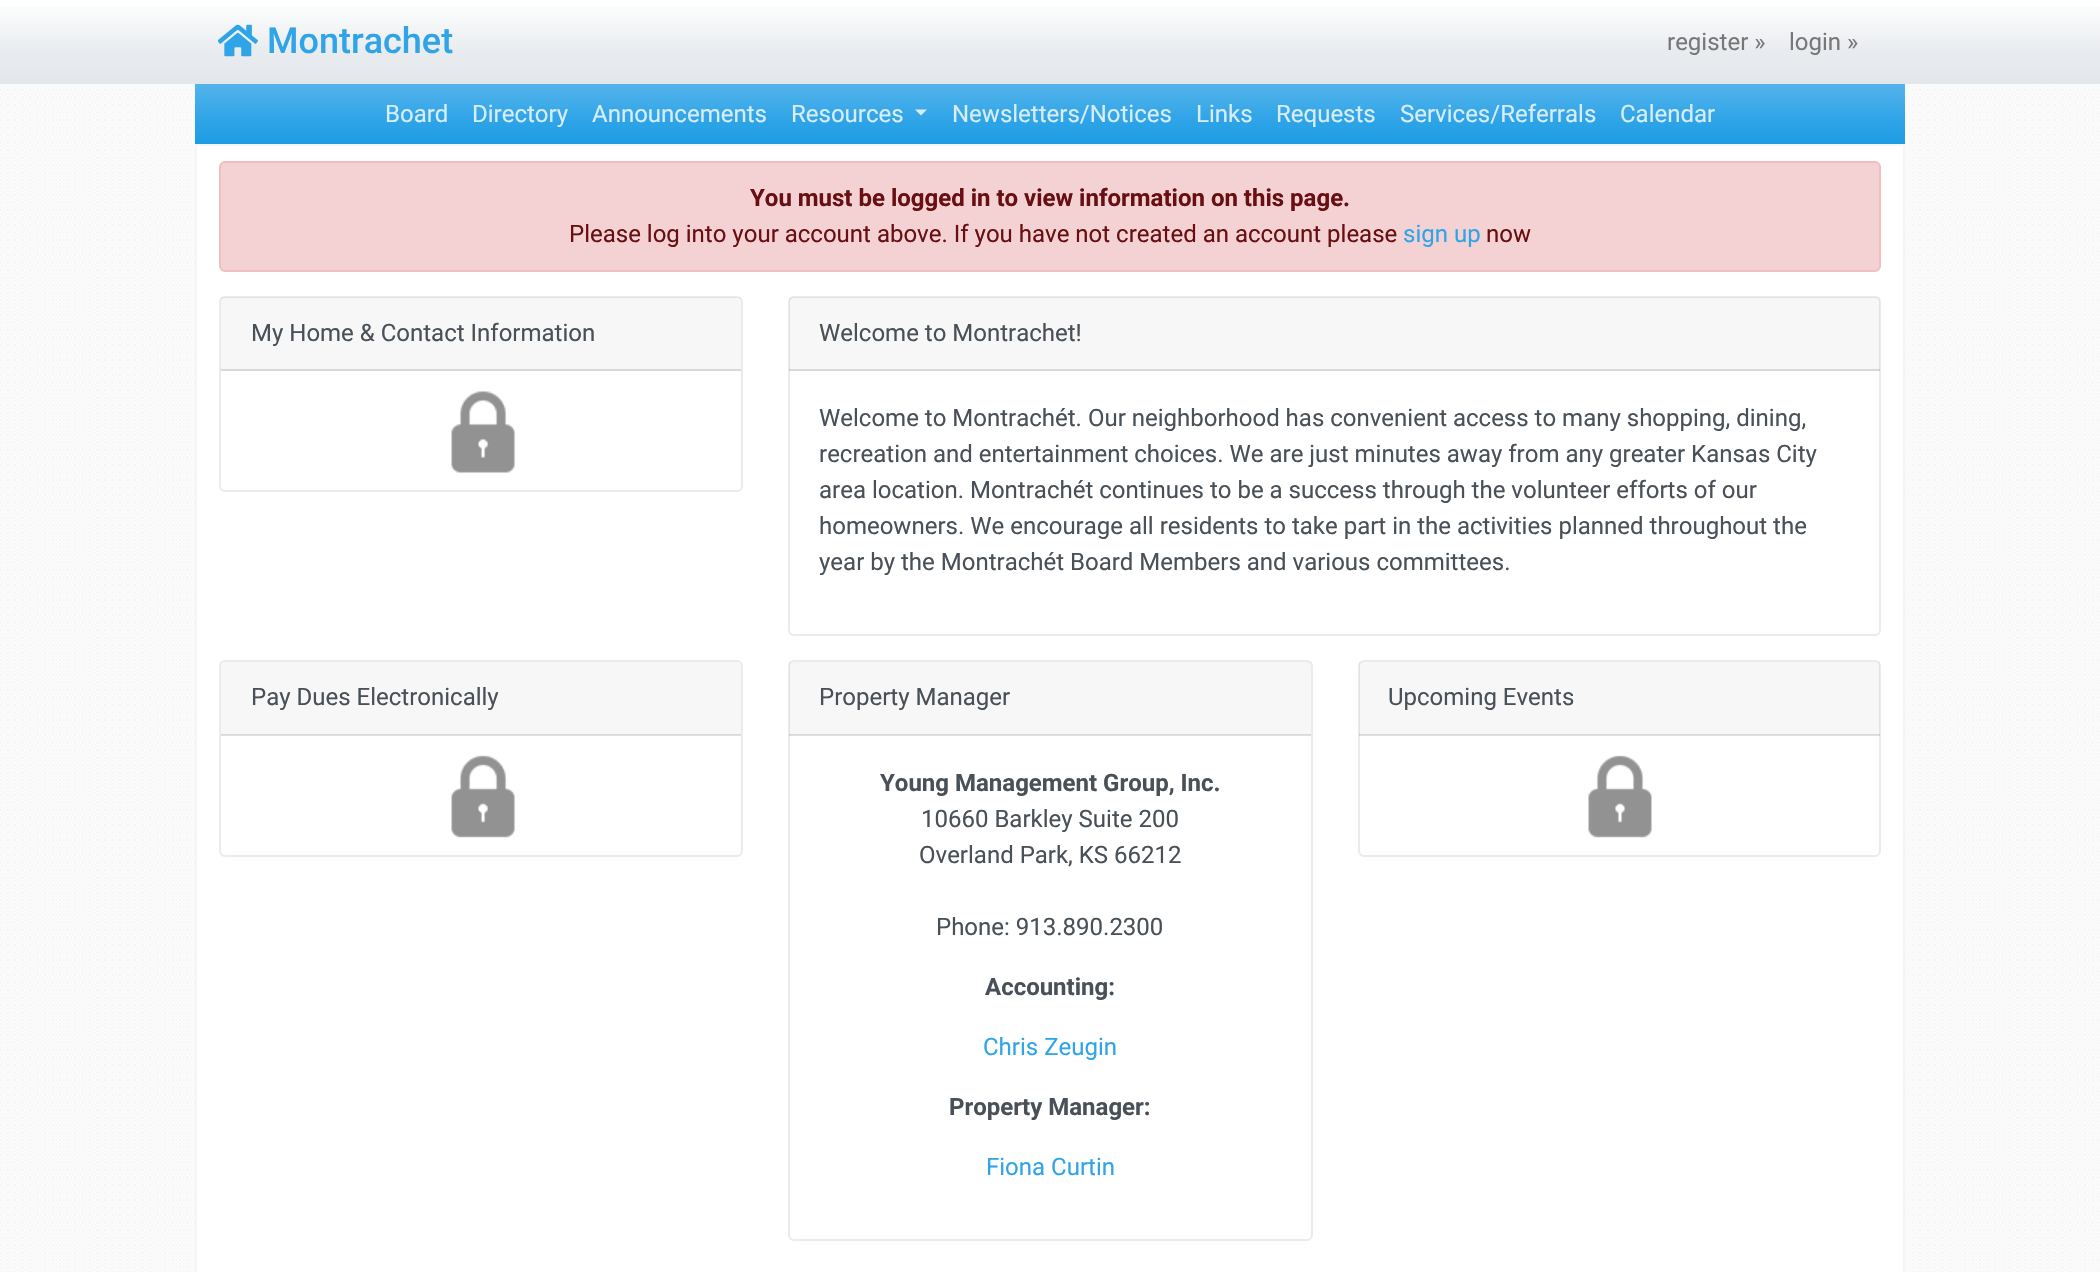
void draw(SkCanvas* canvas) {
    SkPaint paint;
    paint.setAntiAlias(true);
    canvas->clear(0xFFFFFFFF);
    canvas->drawImageRect(SkImages::DeferredFromEncodedData(SkData::MakeFromFileName("img1.png")), SkRect::MakeXYWH(0, 84, 2100, 1188), SkSamplingOptions());
    {
        const SkColor colors[] = {0xFFFFFFFF, 0xFFE9ECEF, 0xFFE3E7EB};
        const float stops[] = {0, 0.6f, 1};
        const SkPoint ends[] = {{1050, 0}, {1050, 84}};
        paint.setShader(SkGradientShader::MakeLinear(ends, colors, stops, 3, SkTileMode::kClamp));
        paint.setAlpha(255);
    }
    canvas->drawRect(SkRect::MakeXYWH(0, 6, 2100, 78), paint);
    canvas->drawImageRect(SkImages::DeferredFromEncodedData(SkData::MakeFromFileName("img2.png")), SkRect::MakeXYWH(218, 24, 40, 33), SkSamplingOptions());
    SkFont font1(fontMgr->matchFamilyStyle("Roboto", SkFontStyle(500, SkFontStyle::kNormal_Width, SkFontStyle::kUpright_Slant)), 36);
    font1.setSubpixel(true);
    paint.setShader(nullptr);
    paint.setColor(0xFF2FA4E7);
    canvas->drawString("Montrachet", 267, 53, font1, paint);
    SkFont font2(fontMgr->matchFamilyStyle("Roboto", SkFontStyle::Normal()), 24);
    font2.setSubpixel(true);
    paint.setColor(0xFF767779);
    canvas->drawString("register »", 1667, 50, font2, paint);
    canvas->drawString("login »", 1789, 50, font2, paint);
    {
        const SkColor colors[] = {0xFF54B4EB, 0xFF2FA4E7, 0xFF1D9CE5};
        const float stops[] = {0, 0.6f, 1};
        const SkPoint ends[] = {{1050, 84}, {1050, 144}};
        paint.setShader(SkGradientShader::MakeLinear(ends, colors, stops, 3, SkTileMode::kClamp));
        paint.setAlpha(255);
    }
    canvas->drawRect(SkRect::MakeXYWH(195, 84, 1710, 60), paint);
    paint.setShader(nullptr);
    paint.setColor(0xFFD7EDFA);
    canvas->drawString("Board", 385, 122, font2, paint);
    canvas->drawString("Directory", 472, 122, font2, paint);
    canvas->drawString("Announcements", 592, 122, font2, paint);
    canvas->drawString("Resources", 791, 122, font2, paint);
    paint.setColor(0xCCFFFFFF);
    canvas->drawPath(SkPathBuilder().moveTo(915, 109.5f).lineTo(927, 109.5f).lineTo(921, 115.5f).close().detach(), paint);
    paint.setColor(0xFFD7EDFA);
    canvas->drawString("Newsletters/Notices", 952, 122, font2, paint);
    canvas->drawString("Links", 1196, 122, font2, paint);
    canvas->drawString("Requests", 1276, 122, font2, paint);
    canvas->drawString("Services/Referrals", 1400, 122, font2, paint);
    canvas->drawString("Calendar", 1620, 122, font2, paint);
    paint.setColor(0xFFFFFFFF);
    canvas->drawRect(SkRect::MakeXYWH(196, 145, 1708, 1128), paint);
    paint.setStyle(SkPaint::kStroke_Style);
    paint.setStrokeWidth(2);
    paint.setColor(0xFFF5F5F5);
    canvas->drawRect(SkRect::MakeXYWH(196, 145, 1708, 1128), paint);
    paint.setStyle(SkPaint::kFill_Style);
    paint.setColor(0xFFF4D2D3);
    canvas->drawRoundRect(SkRect::MakeXYWH(220, 162, 1660, 109), 5, 5, paint);
    paint.setStyle(SkPaint::kStroke_Style);
    paint.setColor(0xFFEFBFC1);
    canvas->drawRoundRect(SkRect::MakeXYWH(220, 162, 1660, 109), 5, 5, paint);
    SkFont font3(fontMgr->matchFamilyStyle("Roboto", SkFontStyle::Bold()), 24);
    font3.setSubpixel(true);
    paint.setStyle(SkPaint::kFill_Style);
    paint.setColor(0xFF670F12);
    canvas->drawString("You must be logged in to view information on this page.", 750, 206, font3, paint);
    canvas->drawString("Please log into your account above. If you have not created an account please", 569, 242, font2, paint);
    paint.setColor(0xFF2FA4E7);
    canvas->drawString("sign up", 1403, 242, font2, paint);
    paint.setColor(0xFF670F12);
    canvas->drawString("now", 1486, 242, font2, paint);
    paint.setStyle(SkPaint::kStroke_Style);
    paint.setColor(0xFFE9ECEF);
    canvas->drawRoundRect(SkRect::MakeXYWH(220, 297, 522, 194), 5, 5, paint);
    paint.setStyle(SkPaint::kFill_Style);
    paint.setColor(0x08000000);
    canvas->drawRect(SkRect::MakeXYWH(221, 297, 520, 72), paint);
    paint.setColor(0xFFD8D8D8);
    canvas->drawRect(SkRect::MakeXYWH(221, 369, 520, 2), paint);
    paint.setColor(0xFF495057);
    canvas->drawString("My Home & Contact Information", 251, 341, font2, paint);
    canvas->drawImageRect(SkImages::DeferredFromEncodedData(SkData::MakeFromFileName("img3.png")), SkRect::MakeXYWH(451, 391, 64, 82), SkSamplingOptions());
    paint.setStyle(SkPaint::kStroke_Style);
    paint.setColor(0xFFE9ECEF);
    canvas->drawRoundRect(SkRect::MakeXYWH(789, 297, 1091, 338), 5, 5, paint);
    paint.setStyle(SkPaint::kFill_Style);
    paint.setColor(0x08000000);
    canvas->drawRect(SkRect::MakeXYWH(789, 297, 1091, 74), paint);
    paint.setColor(0x1F000000);
    canvas->drawRect(SkRect::MakeXYWH(789, 369, 1091, 2), paint);
    paint.setColor(0xFF495057);
    canvas->drawString("Welcome to Montrachet!", 819, 341, font2, paint);
    canvas->drawString("Welcome to Montrachét. Our neighborhood has convenient access to many shopping, dining,", 819, 426, font2, paint);
    canvas->drawString("recreation and entertainment choices. We are just minutes away from any greater Kansas City", 819, 462, font2, paint);
    canvas->drawString("area location. Montrachét continues to be a success through the volunteer efforts of our", 819, 498, font2, paint);
    canvas->drawString("homeowners. We encourage all residents to take part in the activities planned throughout the", 819, 534, font2, paint);
    canvas->drawString("year by the Montrachét Board Members and various committees.", 819, 570, font2, paint);
    paint.setStyle(SkPaint::kStroke_Style);
    paint.setColor(0xFFE9ECEF);
    canvas->drawRoundRect(SkRect::MakeXYWH(220, 661, 522, 195), 5, 5, paint);
    paint.setStyle(SkPaint::kFill_Style);
    paint.setColor(0xFFF7F7F7);
    canvas->drawPath(SkPathBuilder().moveTo(226, 662).lineTo(736, 662).cubicTo(739, 662, 741, 664, 741, 667).lineTo(741, 735).lineTo(221, 735).lineTo(221, 667).cubicTo(221, 664, 223, 662, 226, 662).close().detach(), paint);
    paint.setColor(0x1F000000);
    canvas->drawRect(SkRect::MakeXYWH(221, 734, 520, 2), paint);
    paint.setColor(0xFF495057);
    canvas->drawString("Pay Dues Electronically", 251, 705, font2, paint);
    canvas->drawImageRect(SkImages::DeferredFromEncodedData(SkData::MakeFromFileName("img4.png")), SkRect::MakeXYWH(451, 755, 64, 83), SkSamplingOptions());
    paint.setStyle(SkPaint::kStroke_Style);
    paint.setColor(0xFFE9ECEF);
    canvas->drawRoundRect(SkRect::MakeXYWH(789, 661, 523, 579), 5, 5, paint);
    paint.setStyle(SkPaint::kFill_Style);
    paint.setColor(0x08000000);
    canvas->drawRect(SkRect::MakeXYWH(789, 662, 522, 73), paint);
    paint.setColor(0x1F000000);
    canvas->drawRect(SkRect::MakeXYWH(789, 734, 522, 2), paint);
    paint.setColor(0xFF495057);
    canvas->drawString("Property Manager", 819, 705, font2, paint);
    canvas->drawString("Young Management Group, Inc.", 880, 791, font3, paint);
    canvas->drawString("10660 Barkley Suite 200", 921, 827, font2, paint);
    canvas->drawString("Overland Park, KS 66212", 919, 863, font2, paint);
    canvas->drawString("Phone: 913.890.2300", 936, 935, font2, paint);
    canvas->drawString("Accounting:", 985, 995, font3, paint);
    paint.setColor(0xFF2FA4E7);
    canvas->drawString("Chris Zeugin", 983, 1055, font2, paint);
    paint.setColor(0xFF495057);
    canvas->drawString("Property Manager:", 949, 1115, font3, paint);
    paint.setColor(0xFF2FA4E7);
    canvas->drawString("Fiona Curtin", 986, 1175, font2, paint);
    paint.setStyle(SkPaint::kStroke_Style);
    paint.setColor(0xFFE9ECEF);
    canvas->drawRoundRect(SkRect::MakeXYWH(1359, 661, 521, 195), 5, 5, paint);
    paint.setStyle(SkPaint::kFill_Style);
    paint.setColor(0x08000000);
    canvas->drawRect(SkRect::MakeXYWH(1359, 662, 521, 73), paint);
    paint.setColor(0x1F000000);
    canvas->drawRect(SkRect::MakeXYWH(1359, 734, 521, 2), paint);
    paint.setColor(0xFF495057);
    canvas->drawString("Upcoming Events", 1388, 705, font2, paint);
    canvas->drawImageRect(SkImages::DeferredFromEncodedData(SkData::MakeFromFileName("img5.png")), SkRect::MakeXYWH(1588, 755, 64, 83), SkSamplingOptions());
}
